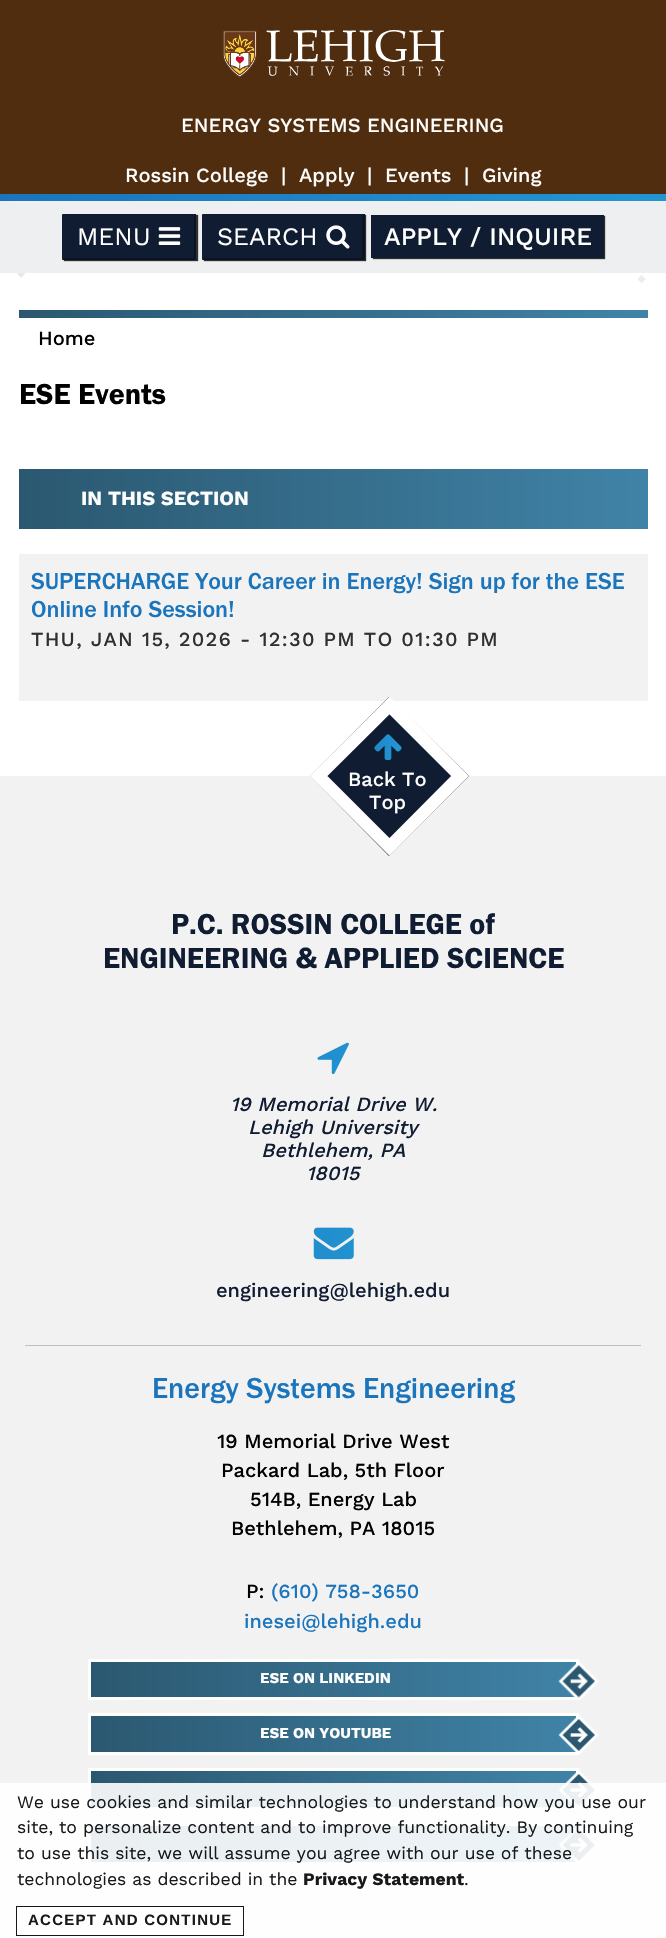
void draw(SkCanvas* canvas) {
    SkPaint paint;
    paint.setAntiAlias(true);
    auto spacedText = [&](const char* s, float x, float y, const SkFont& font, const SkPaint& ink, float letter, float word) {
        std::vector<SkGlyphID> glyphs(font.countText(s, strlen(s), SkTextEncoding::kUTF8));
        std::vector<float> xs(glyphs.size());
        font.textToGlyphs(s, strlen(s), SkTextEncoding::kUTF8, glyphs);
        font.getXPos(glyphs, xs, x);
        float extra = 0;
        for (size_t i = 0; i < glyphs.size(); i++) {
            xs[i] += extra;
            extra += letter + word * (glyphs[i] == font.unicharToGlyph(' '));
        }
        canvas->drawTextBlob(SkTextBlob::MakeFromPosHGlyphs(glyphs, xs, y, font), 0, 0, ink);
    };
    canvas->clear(0xFFFFFFFF);
    canvas->drawImageRect(SkImages::DeferredFromEncodedData(SkData::MakeFromFileName("img4.png")), SkRect::MakeXYWH(17, 273, 629, 10), SkSamplingOptions());
    paint.setColor(0xFFFFFFFF);
    paint.setMaskFilter(SkMaskFilter::MakeBlur(kNormal_SkBlurStyle, 32.5f));
    canvas->drawRect(SkRect::MakeXYWH(1, 175, 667, 775), paint);
    paint.setMaskFilter(nullptr);
    paint.setColor(0xFF502D0E);
    canvas->drawRect(SkRect::MakeXYWH(0, 0, 666, 194), paint);
    canvas->drawImageRect(SkImages::DeferredFromEncodedData(SkData::MakeFromFileName("img1.png")), SkRect::MakeXYWH(222, 30, 223, 48), SkSamplingOptions());
    SkFont font1(fontMgr->matchFamilyStyle("Work Sans", SkFontStyle(500, SkFontStyle::kNormal_Width, SkFontStyle::kUpright_Slant)), 20);
    font1.setSubpixel(true);
    paint.setColor(0xFFFFFFFF);
    canvas->drawString("ENERGY SYSTEMS ENGINEERING", 181, 132, font1, paint);
    canvas->drawString("Rossin College", 125, 182, font1, paint);
    canvas->drawString("|", 281, 182, font1, paint);
    canvas->drawString("Apply", 299, 182, font1, paint);
    canvas->drawString("|", 367, 182, font1, paint);
    canvas->drawString("Events", 385, 182, font1, paint);
    canvas->drawString("|", 464, 182, font1, paint);
    canvas->drawString("Giving", 482, 182, font1, paint);
    {
        const SkColor colors[] = {0xFF1B75BC, 0xFF27AAE1};
        const float stops[] = {0, 1};
        const SkPoint ends[] = {{0, 198}, {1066, 197}};
        paint.setShader(SkGradientShader::MakeLinear(ends, colors, stops, 2, SkTileMode::kClamp));
        paint.setAlpha(255);
    }
    canvas->drawRect(SkRect::MakeXYWH(0, 194, 666, 7), paint);
    paint.setShader(nullptr);
    paint.setColor(0xFFEEEFF1);
    canvas->drawRect(SkRect::MakeXYWH(0, 201, 666, 72), paint);
    paint.setColor(0xFF303030);
    paint.setMaskFilter(SkMaskFilter::MakeBlur(kNormal_SkBlurStyle, 0.5f));
    canvas->drawRect(SkRect::MakeXYWH(64, 215, 134, 46), paint);
    paint.setMaskFilter(nullptr);
    paint.setColor(0xFF101C31);
    canvas->drawRect(SkRect::MakeXYWH(63, 214, 133, 46), paint);
    canvas->drawPath(SkPathBuilder().moveTo(62, 214).lineTo(196, 214).lineTo(194, 216).lineTo(65, 216).close().detach(), paint);
    paint.setColor(0xFF0B1321);
    canvas->drawPath(SkPathBuilder().moveTo(196, 214).lineTo(196, 260).lineTo(194, 258).lineTo(194, 216).close().detach(), paint);
    canvas->drawPath(SkPathBuilder().moveTo(196, 260).lineTo(62, 260).lineTo(65, 258).lineTo(194, 258).close().detach(), paint);
    paint.setColor(0xFF101C31);
    canvas->drawPath(SkPathBuilder().moveTo(62, 260).lineTo(62, 214).lineTo(65, 216).lineTo(65, 258).close().detach(), paint);
    SkFont font2(fontMgr->matchFamilyStyle("Work Sans", SkFontStyle::Normal()), 25);
    font2.setSubpixel(true);
    paint.setColor(0xFFFFFFFF);
    canvas->drawString("MENU", 77, 245, font2, paint);
    canvas->drawImageRect(SkImages::DeferredFromEncodedData(SkData::MakeFromFileName("img2.png")), SkRect::MakeXYWH(158, 227, 23, 18), SkSamplingOptions());
    paint.setColor(0xFF303030);
    paint.setMaskFilter(SkMaskFilter::MakeBlur(kNormal_SkBlurStyle, 0.5f));
    canvas->drawRect(SkRect::MakeXYWH(204, 215, 162, 46), paint);
    paint.setMaskFilter(nullptr);
    paint.setColor(0xFF101C31);
    canvas->drawRect(SkRect::MakeXYWH(203, 214, 162, 46), paint);
    canvas->drawPath(SkPathBuilder().moveTo(202, 214).lineTo(365, 214).lineTo(362, 216).lineTo(205, 216).close().detach(), paint);
    paint.setColor(0xFF0B1321);
    canvas->drawPath(SkPathBuilder().moveTo(365, 214).lineTo(365, 260).lineTo(362, 258).lineTo(362, 216).close().detach(), paint);
    canvas->drawPath(SkPathBuilder().moveTo(365, 260).lineTo(202, 260).lineTo(205, 258).lineTo(362, 258).close().detach(), paint);
    paint.setColor(0xFF101C31);
    canvas->drawPath(SkPathBuilder().moveTo(202, 260).lineTo(202, 214).lineTo(205, 216).lineTo(205, 258).close().detach(), paint);
    paint.setColor(0xFFFFFFFF);
    canvas->drawString("SEARCH", 217, 245, font2, paint);
    canvas->drawImageRect(SkImages::DeferredFromEncodedData(SkData::MakeFromFileName("img3.png")), SkRect::MakeXYWH(326, 225, 24, 24), SkSamplingOptions());
    paint.setColor(0xFF303030);
    paint.setMaskFilter(SkMaskFilter::MakeBlur(kNormal_SkBlurStyle, 0.5f));
    canvas->drawRect(SkRect::MakeXYWH(373, 216, 232, 43), paint);
    paint.setMaskFilter(nullptr);
    paint.setColor(0xFF101C31);
    canvas->drawRect(SkRect::MakeXYWH(371, 215, 233, 43), paint);
    SkFont font3(fontMgr->matchFamilyStyle("Work Sans", SkFontStyle(500, SkFontStyle::kNormal_Width, SkFontStyle::kUpright_Slant)), 25);
    font3.setSubpixel(true);
    paint.setColor(0xFFFFFFFF);
    canvas->drawString("APPLY / INQUIRE", 384, 245, font3, paint);
    {
        const SkColor colors[] = {0xFF2B5870, 0xFF4083A7};
        const float stops[] = {0, 1};
        const SkPoint ends[] = {{19, 314}, {648, 314}};
        paint.setShader(SkGradientShader::MakeLinear(ends, colors, stops, 2, SkTileMode::kClamp));
        paint.setAlpha(255);
    }
    canvas->drawRect(SkRect::MakeXYWH(19, 310, 629, 8), paint);
    paint.setShader(nullptr);
    paint.setColor(0xFF000000);
    canvas->drawString("Home", 38, 345, font1, paint);
    SkFont font4(fontMgr->matchFamilyStyle("Franklin Gothic", SkFontStyle::Normal()), 30);
    font4.setSubpixel(true);
    canvas->drawString("ESE Events", 19, 404, font4, paint);
    {
        const SkColor colors[] = {0xFF2B5870, 0xFF4083A7};
        const float stops[] = {0, 1};
        const SkPoint ends[] = {{19, 499}, {648, 499}};
        paint.setShader(SkGradientShader::MakeLinear(ends, colors, stops, 2, SkTileMode::kClamp));
        paint.setAlpha(255);
    }
    canvas->drawRect(SkRect::MakeXYWH(19, 469, 629, 60), paint);
    SkFont font5(fontMgr->matchFamilyStyle("Work Sans", SkFontStyle::Bold()), 20);
    font5.setSubpixel(true);
    paint.setShader(nullptr);
    paint.setColor(0xFFFFFFFF);
    canvas->drawString("IN THIS SECTION", 81, 505, font5, paint);
    paint.setColor(0xFFF2F2F2);
    canvas->drawRect(SkRect::MakeXYWH(19, 554, 629, 147), paint);
    SkFont font6(fontMgr->matchFamilyStyle("Franklin Gothic", SkFontStyle(500, SkFontStyle::kNormal_Width, SkFontStyle::kUpright_Slant)), 24);
    font6.setSubpixel(true);
    paint.setColor(0xFF1B75BC);
    canvas->drawString("SUPERCHARGE Your Career in Energy! Sign up for the ESE", 31, 589, font6, paint);
    canvas->drawString("Online Info Session!", 31, 617, font6, paint);
    paint.setColor(0xFF303030);
    spacedText("THU, JAN 15, 2026 - 12:30 PM TO 01:30 PM", 31, 646, font1, paint, 1.25f, 0);
    paint.setColor(0xFFF2F2F2);
    canvas->drawRect(SkRect::MakeXYWH(0, 776, 666, 1162), paint);
    paint.setColor(0xFF101C31);
    canvas->drawPath(SkPathBuilder().moveTo(389, 697).lineTo(469, 776).lineTo(389, 856).lineTo(310, 776).close().detach(), paint);
    paint.setStyle(SkPaint::kStroke_Style);
    paint.setStrokeWidth(12.5f);
    paint.setColor(0xFFFFFFFF);
    canvas->drawPath(SkPathBuilder().moveTo(389.5f, 705.5f).lineTo(460, 776).lineTo(389.5f, 847).lineTo(318.5f, 776).close().detach(), paint);
    canvas->drawImageRect(SkImages::DeferredFromEncodedData(SkData::MakeFromFileName("img5.png")), SkRect::MakeXYWH(374, 734, 28, 26), SkSamplingOptions());
    paint.setStyle(SkPaint::kFill_Style);
    canvas->drawString("Back To", 348, 786, font1, paint);
    canvas->drawString("Top", 369, 809, font1, paint);
    paint.setColor(0xFFC0C0C0);
    canvas->drawRect(SkRect::MakeXYWH(25, 1345, 616, 1), paint);
    paint.setColor(0xFF101C31);
    canvas->drawString("P.C. ROSSIN COLLEGE of", 171, 934, font4, paint);
    canvas->drawString("ENGINEERING & APPLIED SCIENCE", 103, 968, font4, paint);
    canvas->drawImageRect(SkImages::DeferredFromEncodedData(SkData::MakeFromFileName("img6.png")), SkRect::MakeXYWH(317, 1042, 32, 33), SkSamplingOptions());
    SkFont font7(fontMgr->matchFamilyStyle("Work Sans", SkFontStyle(500, SkFontStyle::kNormal_Width, SkFontStyle::kItalic_Slant)), 20);
    font7.setSubpixel(true);
    canvas->drawString("19 Memorial Drive W.", 230, 1111, font7, paint);
    canvas->drawString("Lehigh University", 248, 1134, font7, paint);
    canvas->drawString("Bethlehem, PA", 261, 1157, font7, paint);
    canvas->drawString("18015", 306, 1180, font7, paint);
    canvas->drawImageRect(SkImages::DeferredFromEncodedData(SkData::MakeFromFileName("img7.png")), SkRect::MakeXYWH(313, 1227, 41, 33), SkSamplingOptions());
    canvas->drawString("engineering@lehigh.edu", 216, 1297, font1, paint);
    SkFont font8(fontMgr->matchFamilyStyle("Franklin Gothic", SkFontStyle(500, SkFontStyle::kNormal_Width, SkFontStyle::kUpright_Slant)), 30);
    font8.setSubpixel(true);
    paint.setColor(0xFF1B75BC);
    canvas->drawString("Energy Systems Engineering", 152, 1398, font8, paint);
    paint.setColor(0xFF000000);
    canvas->drawString("19 Memorial Drive West", 217, 1448, font1, paint);
    canvas->drawString("Packard Lab, 5th Floor", 221, 1477, font1, paint);
    canvas->drawString("514B, Energy Lab", 250, 1506, font1, paint);
    canvas->drawString("Bethlehem, PA 18015", 231, 1535, font1, paint);
    canvas->drawString("P:", 246, 1598, font1, paint);
    paint.setColor(0xFF1B75BC);
    canvas->drawString("(610) 758-3650", 271, 1598, font1, paint);
    canvas->drawString("inesei@lehigh.edu", 244, 1628, font1, paint);
    {
        const SkColor colors[] = {0xFF2B5870, 0xFF4083A7};
        const float stops[] = {0, 1};
        const SkPoint ends[] = {{90, 1679}, {576, 1679}};
        paint.setShader(SkGradientShader::MakeLinear(ends, colors, stops, 2, SkTileMode::kClamp));
        paint.setAlpha(255);
    }
    canvas->drawRect(SkRect::MakeXYWH(91, 1662, 485, 35), paint);
    paint.setStyle(SkPaint::kStroke_Style);
    paint.setStrokeWidth(3);
    paint.setShader(nullptr);
    paint.setColor(0xFFFFFFFF);
    canvas->drawRect(SkRect::MakeXYWH(89.5f, 1660.5f, 488, 38), paint);
    SkFont font9(fontMgr->matchFamilyStyle("Work Sans", SkFontStyle::Bold()), 15);
    font9.setSubpixel(true);
    paint.setStyle(SkPaint::kFill_Style);
    canvas->drawString("ESE ON LINKEDIN", 260, 1683, font9, paint);
    canvas->drawImageRect(SkImages::DeferredFromEncodedData(SkData::MakeFromFileName("img8.png")), SkRect::MakeXYWH(558, 1662, 41, 38), SkSamplingOptions());
    {
        const SkColor colors[] = {0xFF2B5870, 0xFF4083A7};
        const float stops[] = {0, 1};
        const SkPoint ends[] = {{90, 1734}, {576, 1734}};
        paint.setShader(SkGradientShader::MakeLinear(ends, colors, stops, 2, SkTileMode::kClamp));
        paint.setAlpha(255);
    }
    canvas->drawRect(SkRect::MakeXYWH(91, 1716, 485, 36), paint);
    paint.setStyle(SkPaint::kStroke_Style);
    paint.setShader(nullptr);
    paint.setColor(0xFFFFFFFF);
    canvas->drawRect(SkRect::MakeXYWH(89.5f, 1714.5f, 488, 39), paint);
    paint.setStyle(SkPaint::kFill_Style);
    canvas->drawString("ESE ON YOUTUBE", 260, 1738, font9, paint);
    canvas->drawImageRect(SkImages::DeferredFromEncodedData(SkData::MakeFromFileName("img9.png")), SkRect::MakeXYWH(558, 1715, 41, 40), SkSamplingOptions());
    {
        const SkColor colors[] = {0xFF2B5870, 0xFF4083A7};
        const float stops[] = {0, 1};
        const SkPoint ends[] = {{90, 1789}, {576, 1789}};
        paint.setShader(SkGradientShader::MakeLinear(ends, colors, stops, 2, SkTileMode::kClamp));
        paint.setAlpha(255);
    }
    canvas->drawRect(SkRect::MakeXYWH(91, 1771, 485, 36), paint);
    paint.setStyle(SkPaint::kStroke_Style);
    paint.setShader(nullptr);
    paint.setColor(0xFFFFFFFF);
    canvas->drawRect(SkRect::MakeXYWH(89.5f, 1769.5f, 488, 39), paint);
    canvas->drawImageRect(SkImages::DeferredFromEncodedData(SkData::MakeFromFileName("img10.png")), SkRect::MakeXYWH(558, 1770, 41, 39), SkSamplingOptions());
    paint.setStyle(SkPaint::kFill_Style);
    {
        const SkColor colors[] = {0xFF2B5870, 0xFF4083A7};
        const float stops[] = {0, 1};
        const SkPoint ends[] = {{90, 1844}, {576, 1844}};
        paint.setShader(SkGradientShader::MakeLinear(ends, colors, stops, 2, SkTileMode::kClamp));
        paint.setAlpha(255);
    }
    canvas->drawRect(SkRect::MakeXYWH(91, 1826, 485, 36), paint);
    paint.setStyle(SkPaint::kStroke_Style);
    paint.setShader(nullptr);
    paint.setColor(0xFFFFFFFF);
    canvas->drawRect(SkRect::MakeXYWH(89.5f, 1824.5f, 488, 39), paint);
    canvas->drawImageRect(SkImages::DeferredFromEncodedData(SkData::MakeFromFileName("img10.png")), SkRect::MakeXYWH(558, 1825, 41, 39), SkSamplingOptions());
    paint.setStyle(SkPaint::kFill_Style);
    paint.setColor(0xE6FFFFFF);
    canvas->drawRect(SkRect::MakeXYWH(0, 1783, 666, 155), paint);
    SkFont font10(fontMgr->matchFamilyStyle("Work Sans", SkFontStyle::Normal()), 17.5f);
    font10.setSubpixel(true);
    paint.setColor(0xFF181919);
    canvas->drawString("We use cookies and similar technologies to understand how you use our", 17, 1808, font10, paint);
    canvas->drawString("site, to personalize content and to improve functionality. By continuing", 17, 1833, font10, paint);
    canvas->drawString("to use this site, we will assume you agree with our use of these", 17, 1859, font10, paint);
    canvas->drawString("technologies as described in the", 17, 1885, font10, paint);
    SkFont font11(fontMgr->matchFamilyStyle("Work Sans", SkFontStyle::Bold()), 17.5f);
    font11.setSubpixel(true);
    canvas->drawString("Privacy Statement", 303, 1885, font11, paint);
    canvas->drawString(".", 464, 1885, font10, paint);
    paint.setStyle(SkPaint::kStroke_Style);
    paint.setStrokeWidth(1);
    paint.setColor(0xFF181818);
    canvas->drawRect(SkRect::MakeXYWH(16.5f, 1906.5f, 227, 29), paint);
    SkFont font12(fontMgr->matchFamilyStyle("Liberation Sans", SkFontStyle::Bold()), 15);
    font12.setSubpixel(true);
    paint.setStyle(SkPaint::kFill_Style);
    paint.setColor(0xFF181919);
    spacedText("ACCEPT AND CONTINUE", 28, 1925, font12, paint, 1.25f, 0);
}
